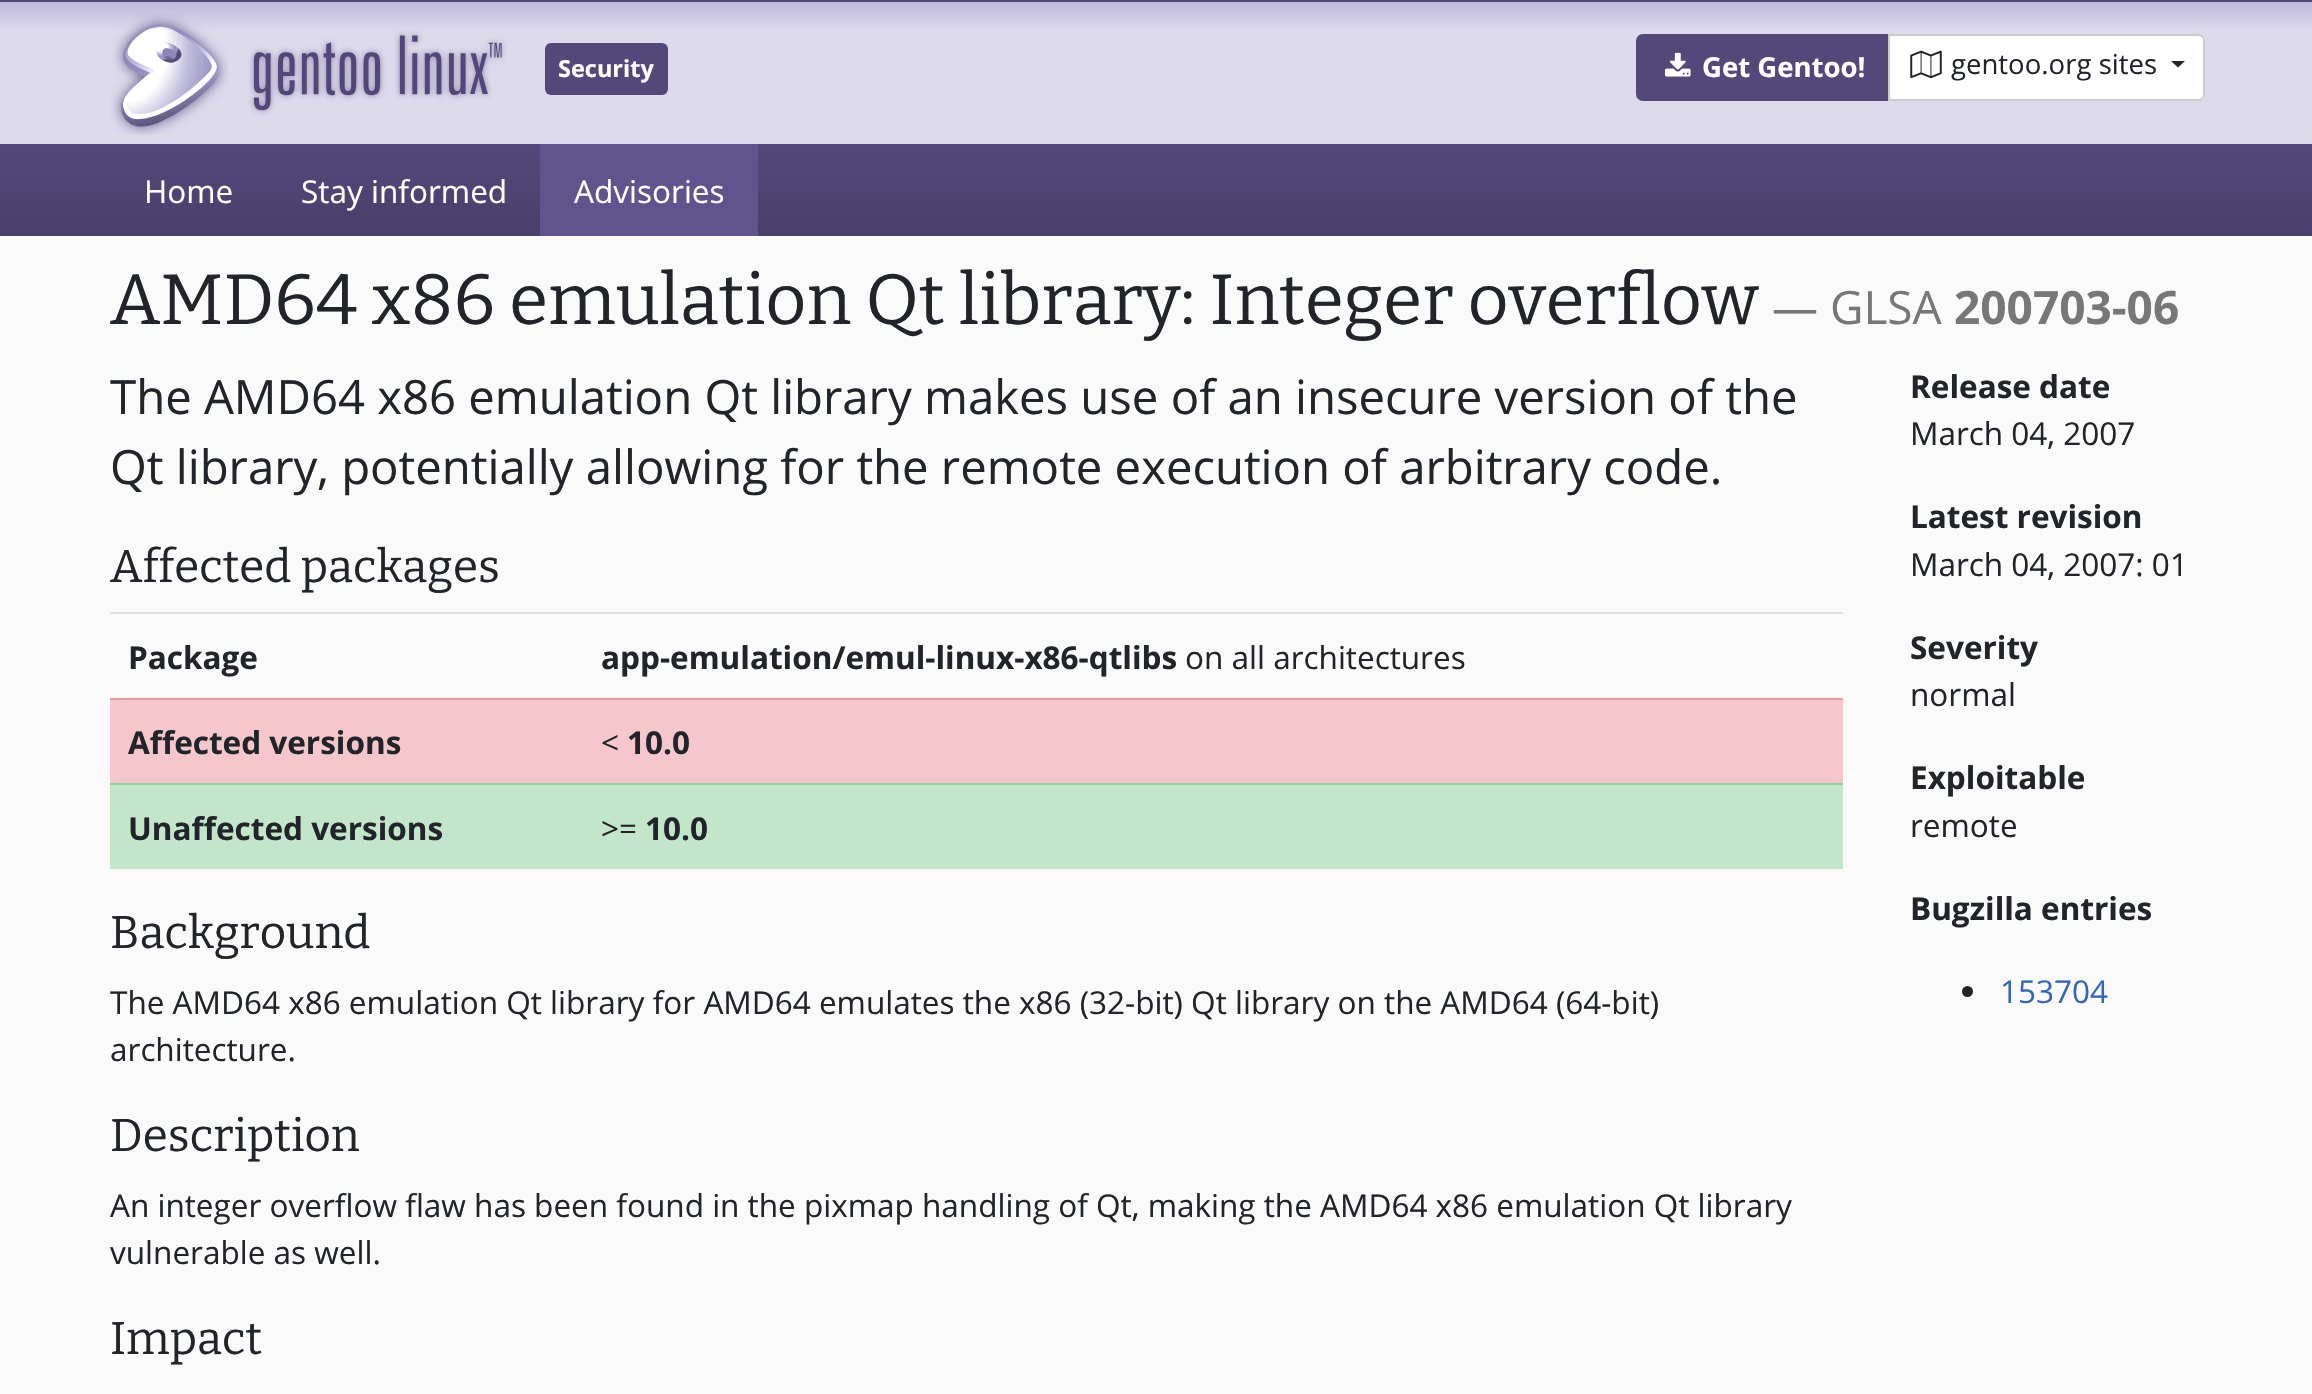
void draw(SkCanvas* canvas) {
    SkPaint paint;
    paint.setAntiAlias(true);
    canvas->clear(0xFFFAFAFA);
    paint.setColor(0xFF54487A);
    canvas->drawRect(SkRect::MakeXYWH(0, 0, 2312, 2), paint);
    {
        const SkColor colors[] = {0xFFBEB8DB, 0xFFDDDAEC};
        const float stops[] = {0, 0.2f};
        const SkPoint ends[] = {{1157, 2.2f}, {1157, 144}};
        paint.setShader(SkGradientShader::MakeLinear(ends, colors, stops, 2, SkTileMode::kClamp));
        paint.setAlpha(255);
    }
    canvas->drawRect(SkRect::MakeXYWH(0, 2, 2312, 142), paint);
    canvas->drawImageRect(SkImages::DeferredFromEncodedData(SkData::MakeFromFileName("img1.png")), SkRect::MakeXYWH(111, 14, 396, 121), SkSamplingOptions());
    paint.setShader(nullptr);
    paint.setColor(0xFF54487A);
    canvas->drawRoundRect(SkRect::MakeXYWH(545, 43, 123, 52), 6, 6, paint);
    SkFont font1(fontMgr->matchFamilyStyle("Open Sans", SkFontStyle::Bold()), 23.5f);
    font1.setSubpixel(true);
    paint.setColor(0xFFFFFFFF);
    canvas->drawString("Security", 558, 77, font1, paint);
    paint.setColor(0xFF54487A);
    canvas->drawPath(SkPathBuilder().moveTo(1643, 35).lineTo(1889, 35).lineTo(1889, 100).lineTo(1643, 100).cubicTo(1639.5f, 100, 1637, 97.5f, 1637, 94).lineTo(1637, 41).cubicTo(1637, 37.5f, 1639.5f, 35, 1643, 35).close().detach(), paint);
    paint.setStyle(SkPaint::kStroke_Style);
    paint.setStrokeWidth(2);
    canvas->drawPath(SkPathBuilder().moveTo(1643, 35).lineTo(1889, 35).lineTo(1889, 100).lineTo(1643, 100).cubicTo(1639.5f, 100, 1637, 97.5f, 1637, 94).lineTo(1637, 41).cubicTo(1637, 37.5f, 1639.5f, 35, 1643, 35).close().detach(), paint);
    canvas->drawImageRect(SkImages::DeferredFromEncodedData(SkData::MakeFromFileName("img2.png")), SkRect::MakeXYWH(1665, 52, 26, 25), SkSamplingOptions());
    SkFont font2(fontMgr->matchFamilyStyle("Open Sans", SkFontStyle::Bold()), 27.5f);
    font2.setSubpixel(true);
    paint.setStyle(SkPaint::kFill_Style);
    paint.setColor(0xFFFFFFFF);
    canvas->drawString("Get Gentoo!", 1702, 77, font2, paint);
    canvas->drawPath(SkPathBuilder().moveTo(1889, 35).lineTo(2198, 35).cubicTo(2201.5f, 35, 2204, 37.5f, 2204, 41).lineTo(2204, 94).cubicTo(2204, 97.5f, 2201.5f, 100, 2198, 100).lineTo(1889, 100).close().detach(), paint);
    paint.setStyle(SkPaint::kStroke_Style);
    paint.setColor(0xFFCCCCCC);
    canvas->drawPath(SkPathBuilder().moveTo(1889, 35).lineTo(2198, 35).cubicTo(2201.5f, 35, 2204, 37.5f, 2204, 41).lineTo(2204, 94).cubicTo(2204, 97.5f, 2201.5f, 100, 2198, 100).lineTo(1889, 100).close().detach(), paint);
    canvas->drawImageRect(SkImages::DeferredFromEncodedData(SkData::MakeFromFileName("img3.png")), SkRect::MakeXYWH(1910, 50, 32, 29), SkSamplingOptions());
    SkFont font3(fontMgr->matchFamilyStyle("Open Sans", SkFontStyle::Normal()), 27.5f);
    font3.setSubpixel(true);
    paint.setStyle(SkPaint::kFill_Style);
    paint.setColor(0xFF212529);
    canvas->drawString("gentoo.org sites", 1951, 74, font3, paint);
    canvas->drawPath(SkPathBuilder().moveTo(2171, 61).lineTo(2185, 61).lineTo(2178, 67.5f).close().detach(), paint);
    {
        const SkColor colors[] = {0xFF54487A, 0xFF493F6A};
        const float stops[] = {0, 1};
        const SkPoint ends[] = {{1157, 144}, {1157, 236}};
        paint.setShader(SkGradientShader::MakeLinear(ends, colors, stops, 2, SkTileMode::kClamp));
        paint.setAlpha(255);
    }
    canvas->drawRect(SkRect::MakeXYWH(0, 144, 2312, 92), paint);
    SkFont font4(fontMgr->matchFamilyStyle("Open Sans", SkFontStyle::Normal()), 31.5f);
    font4.setSubpixel(true);
    paint.setShader(nullptr);
    paint.setColor(0xFFFFFFFF);
    canvas->drawString("Home", 144, 203, font4, paint);
    canvas->drawString("Stay informed", 301, 203, font4, paint);
    paint.setColor(0xFF61538D);
    canvas->drawRect(SkRect::MakeXYWH(540, 144, 218, 92), paint);
    paint.setColor(0xFFFFFFFF);
    canvas->drawString("Advisories", 574, 203, font4, paint);
    SkFont font5(fontMgr->matchFamilyStyle("Bitter", SkFontStyle::Normal()), 70.9f);
    font5.setSubpixel(true);
    paint.setColor(0xFF212529);
    canvas->drawString("AMD64 x86 emulation Qt library: Integer overflow", 110, 324, font5, paint);
    SkFont font6(fontMgr->matchFamilyStyle("Open Sans", SkFontStyle::Normal()), 46);
    font6.setSubpixel(true);
    paint.setColor(0xFF777777);
    canvas->drawString("— GLSA", 1772, 324, font6, paint);
    SkFont font7(fontMgr->matchFamilyStyle("Open Sans", SkFontStyle::Bold()), 46);
    font7.setSubpixel(true);
    canvas->drawString("200703-06", 1954, 324, font7, paint);
    SkFont font8(fontMgr->matchFamilyStyle("Open Sans", SkFontStyle::Normal()), 47.25f);
    font8.setSubpixel(true);
    paint.setColor(0xFF212529);
    canvas->drawString("The AMD64 x86 emulation Qt library makes use of an insecure version of the", 110, 414, font8, paint);
    canvas->drawString("Qt library, potentially allowing for the remote execution of arbitrary code.", 110, 484, font8, paint);
    SkFont font9(fontMgr->matchFamilyStyle("Bitter", SkFontStyle::Normal()), 45.75f);
    font9.setSubpixel(true);
    canvas->drawString("Affected packages", 110, 582, font9, paint);
    SkFont font10(fontMgr->matchFamilyStyle("Open Sans", SkFontStyle::Bold()), 31.5f);
    font10.setSubpixel(true);
    canvas->drawString("Package", 128, 669, font10, paint);
    paint.setColor(0xFFDEE2E6);
    canvas->drawRect(SkRect::MakeXYWH(110, 612, 1733, 2), paint);
    paint.setColor(0xFF212529);
    canvas->drawString("app-emulation/emul-linux-x86-qtlibs", 601, 669, font10, paint);
    canvas->drawString("on all architectures", 1185, 669, font4, paint);
    paint.setColor(0xFFF5C6CB);
    canvas->drawRect(SkRect::MakeXYWH(110, 700, 1733, 83), paint);
    paint.setColor(0xFF212529);
    canvas->drawString("Affected versions", 128, 754, font10, paint);
    paint.setColor(0xFFED969E);
    canvas->drawRect(SkRect::MakeXYWH(110, 698, 1733, 2), paint);
    paint.setColor(0xFF212529);
    canvas->drawString("<", 601, 754, font4, paint);
    canvas->drawString("10.0", 627, 754, font10, paint);
    paint.setColor(0xFFC3E6CB);
    canvas->drawRect(SkRect::MakeXYWH(110, 785, 1733, 84), paint);
    paint.setColor(0xFF212529);
    canvas->drawString("Unaffected versions", 128, 840, font10, paint);
    paint.setColor(0xFF8FD19E);
    canvas->drawRect(SkRect::MakeXYWH(110, 783, 1733, 2), paint);
    paint.setColor(0xFF212529);
    canvas->drawString(">=", 601, 840, font4, paint);
    canvas->drawString("10.0", 645, 840, font10, paint);
    canvas->drawString("Background", 110, 948, font9, paint);
    canvas->drawString("The AMD64 x86 emulation Qt library for AMD64 emulates the x86 (32-bit) Qt library on the AMD64 (64-bit)", 110, 1014, font4, paint);
    canvas->drawString("architecture.", 110, 1061, font4, paint);
    canvas->drawString("Description", 110, 1151, font9, paint);
    canvas->drawString("An integer overflow flaw has been found in the pixmap handling of Qt, making the AMD64 x86 emulation Qt library", 110, 1217, font4, paint);
    canvas->drawString("vulnerable as well.", 110, 1264, font4, paint);
    canvas->drawString("Impact", 110, 1354, font9, paint);
    canvas->drawString("Release date", 1910, 398, font10, paint);
    canvas->drawString("March 04, 2007", 1910, 445, font4, paint);
    canvas->drawString("Latest revision", 1910, 528, font10, paint);
    canvas->drawString("March 04, 2007: 01", 1910, 576, font4, paint);
    canvas->drawString("Severity", 1910, 659, font10, paint);
    canvas->drawString("normal", 1910, 706, font4, paint);
    canvas->drawString("Exploitable", 1910, 789, font10, paint);
    canvas->drawString("remote", 1910, 837, font4, paint);
    canvas->drawString("Bugzilla entries", 1910, 920, font10, paint);
    canvas->drawCircle(1967.5f, 991.5f, 5.5f, paint);
    paint.setColor(0xFF3366BB);
    canvas->drawString("153704", 2000, 1003, font4, paint);
}
